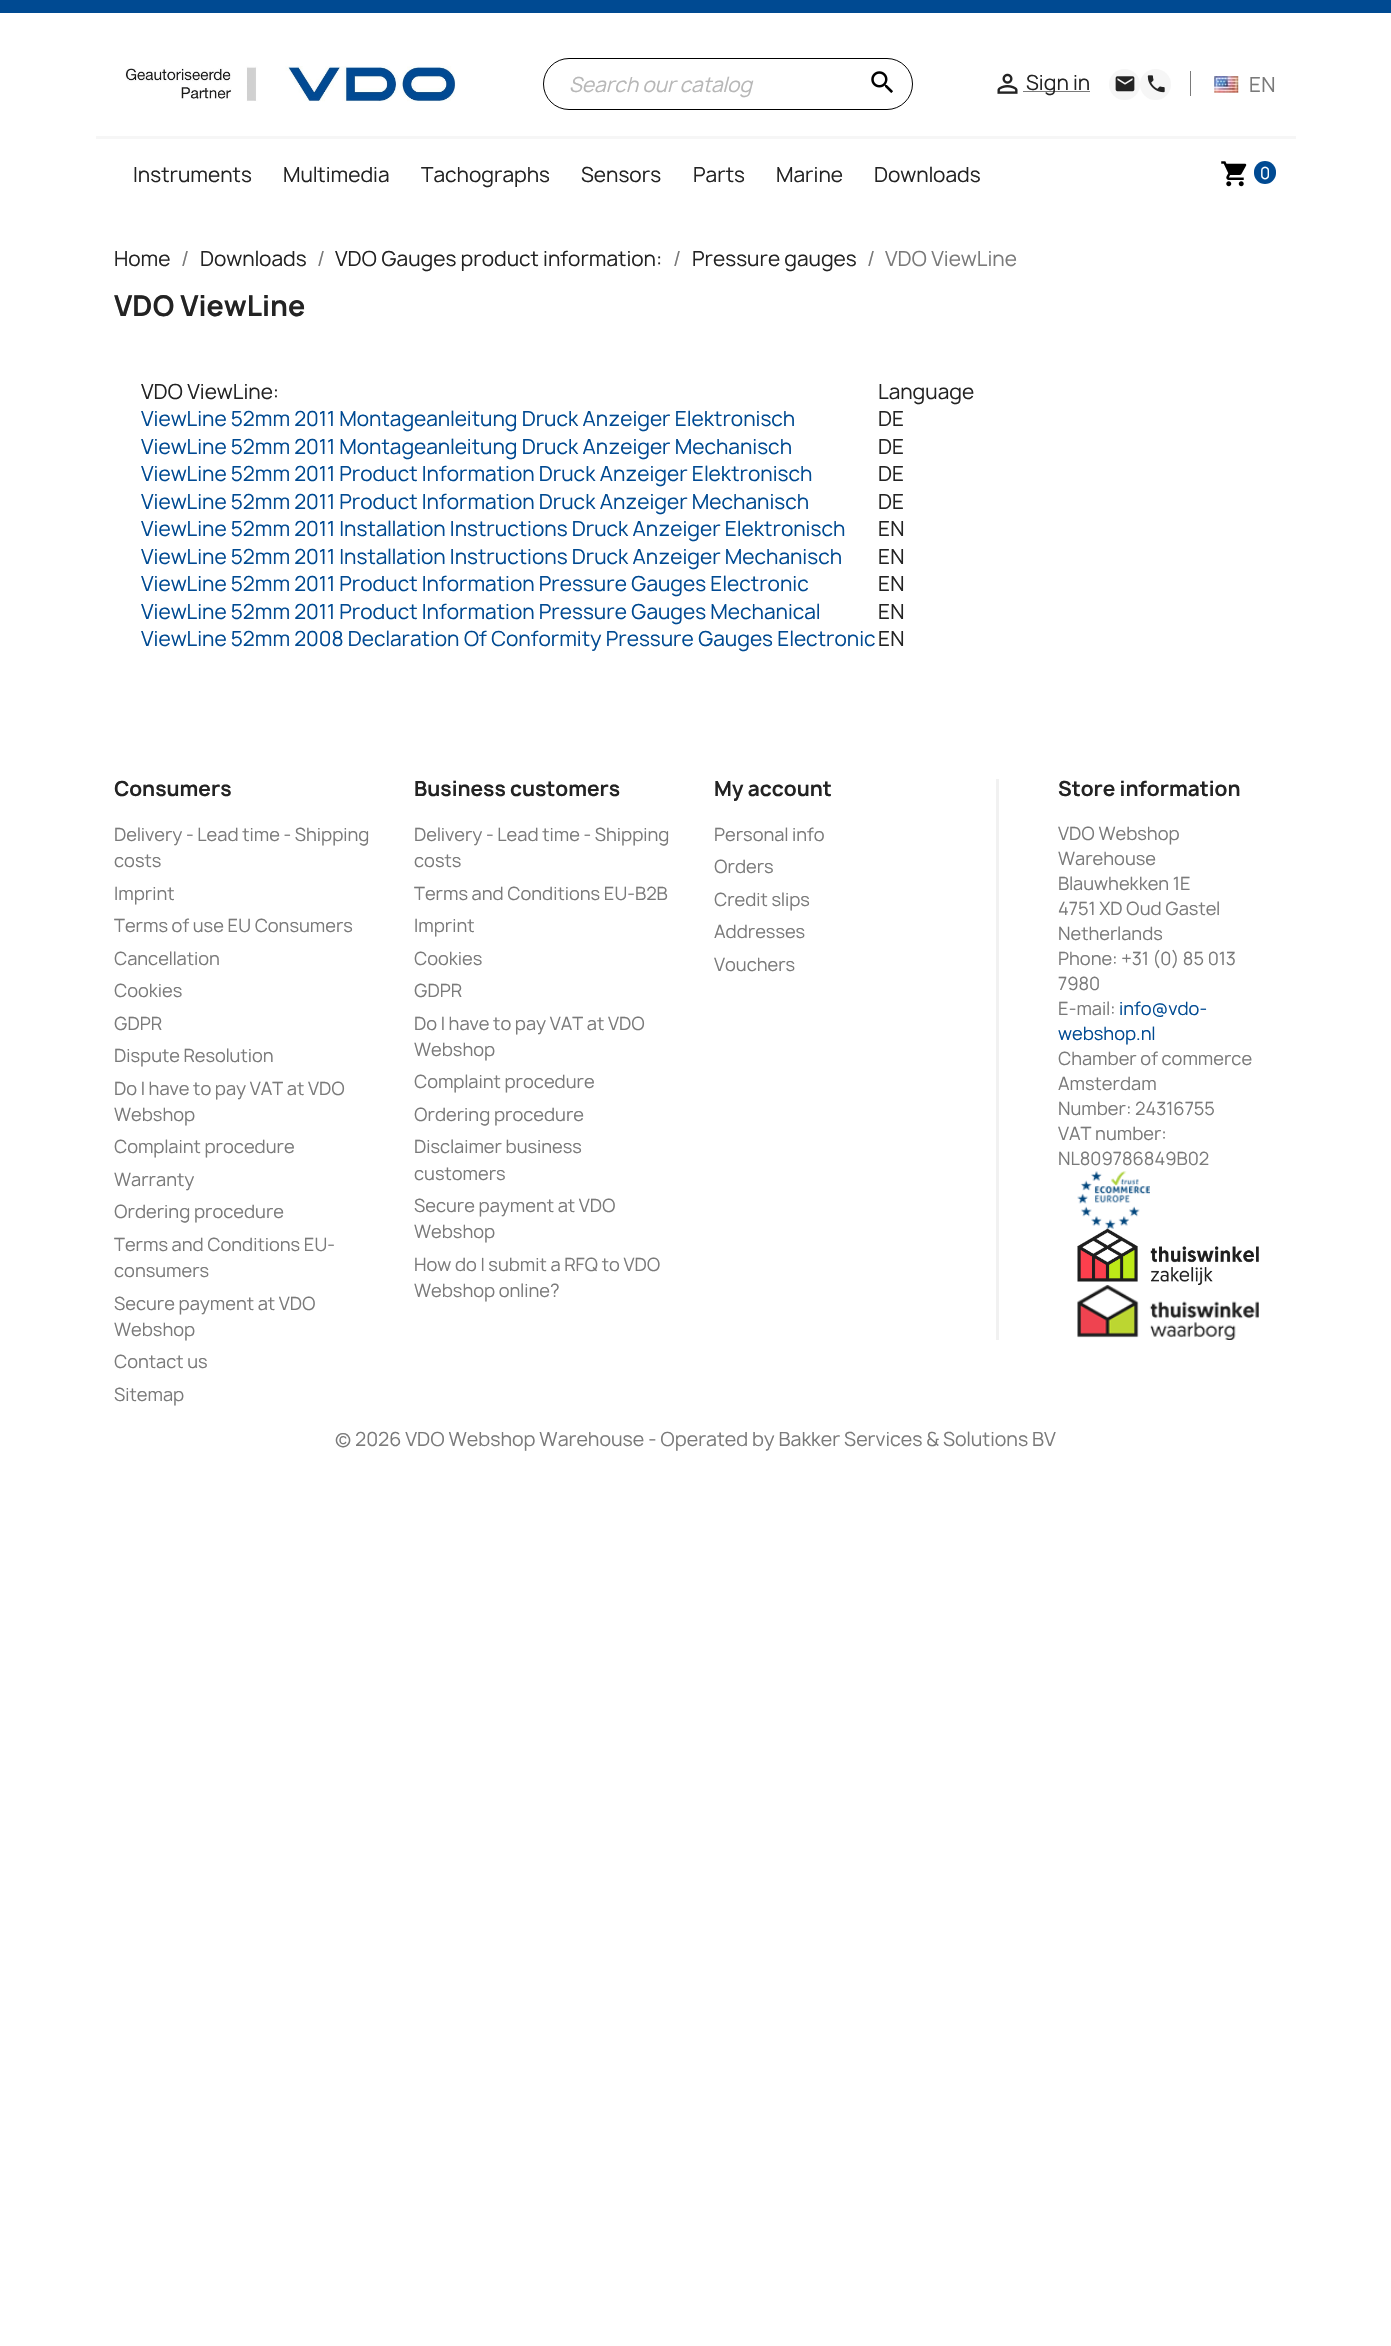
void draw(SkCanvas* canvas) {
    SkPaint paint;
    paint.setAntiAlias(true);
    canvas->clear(0xFFFFFFFF);
    paint.setColor(0xFF004A92);
    canvas->drawRect(SkRect::MakeXYWH(0, 0, 1391, 13), paint);
    canvas->drawImageRect(SkImages::DeferredFromEncodedData(SkData::MakeFromFileName("img1.png")), SkRect::MakeXYWH(125, 66, 331, 36), SkSamplingOptions());
    paint.setStyle(SkPaint::kStroke_Style);
    paint.setStrokeWidth(1);
    paint.setColor(0xFF000000);
    canvas->drawRoundRect(SkRect::MakeXYWH(543.5f, 58.5f, 369, 51), 25.5f, 25.5f, paint);
    SkFont font1(fontMgr->matchFamilyStyle("Manrope", SkFontStyle::Italic()), 20);
    font1.setSubpixel(true);
    paint.setStyle(SkPaint::kFill_Style);
    paint.setColor(0xFFB7B7B7);
    canvas->drawString("Search our catalog", 569, 92, font1, paint);
    canvas->drawImageRect(SkImages::DeferredFromEncodedData(SkData::MakeFromFileName("img2.png")), SkRect::MakeXYWH(871, 71, 22, 22), SkSamplingOptions());
    canvas->drawImageRect(SkImages::DeferredFromEncodedData(SkData::MakeFromFileName("img3.png")), SkRect::MakeXYWH(997, 73, 21, 21), SkSamplingOptions());
    paint.setColor(0xFF7A7A7A);
    canvas->drawRect(SkRect::MakeXYWH(1023, 91, 67, 1), paint);
    SkFont font2(fontMgr->matchFamilyStyle("Manrope", SkFontStyle::Normal()), 20);
    font2.setSubpixel(true);
    paint.setColor(0xFF232323);
    canvas->drawString("Sign in", 1026, 90, font2, paint);
    paint.setColor(0xFFF6F6F6);
    canvas->drawCircle(1124.5f, 84.5f, 15.5f, paint);
    canvas->drawImageRect(SkImages::DeferredFromEncodedData(SkData::MakeFromFileName("img4.png")), SkRect::MakeXYWH(1115, 76, 20, 16), SkSamplingOptions());
    canvas->drawCircle(1155.5f, 84.5f, 15.5f, paint);
    canvas->drawImageRect(SkImages::DeferredFromEncodedData(SkData::MakeFromFileName("img5.png")), SkRect::MakeXYWH(1147, 75, 18, 18), SkSamplingOptions());
    paint.setColor(0xFF7A7A7A);
    canvas->drawRect(SkRect::MakeXYWH(1190, 71, 1, 25), paint);
    canvas->drawImageRect(SkImages::DeferredFromEncodedData(SkData::MakeFromFileName("img6.png")), SkRect::MakeXYWH(1214, 76, 25, 17), SkSamplingOptions());
    canvas->drawString("EN", 1249, 92, font2, paint);
    paint.setColor(0xFFF6F6F6);
    canvas->drawRect(SkRect::MakeXYWH(96, 136, 1200, 3), paint);
    paint.setColor(0xFF232323);
    canvas->drawString("Instruments", 133, 182, font2, paint);
    canvas->drawString("Multimedia", 283, 182, font2, paint);
    canvas->drawString("Tachographs", 421, 182, font2, paint);
    canvas->drawString("Sensors", 581, 182, font2, paint);
    canvas->drawString("Parts", 693, 182, font2, paint);
    canvas->drawString("Marine", 776, 182, font2, paint);
    canvas->drawString("Downloads", 874, 182, font2, paint);
    canvas->drawImageRect(SkImages::DeferredFromEncodedData(SkData::MakeFromFileName("img7.png")), SkRect::MakeXYWH(1221, 161, 26, 26), SkSamplingOptions());
    paint.setColor(0xFF004A92);
    canvas->drawRoundRect(SkRect::MakeXYWH(1254, 161, 22, 23), 11, 11, paint);
    SkFont font3(fontMgr->matchFamilyStyle("Manrope", SkFontStyle::Normal()), 16);
    font3.setSubpixel(true);
    paint.setColor(0xFFFFFFFF);
    canvas->drawString("0", 1260, 179, font3, paint);
    paint.setColor(0xFF232323);
    canvas->drawString("Home", 114, 266, font2, paint);
    paint.setColor(0xFF7A7A7A);
    canvas->drawString("/", 181, 266, font2, paint);
    paint.setColor(0xFF232323);
    canvas->drawString("Downloads", 200, 266, font2, paint);
    paint.setColor(0xFF7A7A7A);
    canvas->drawString("/", 317, 266, font2, paint);
    paint.setColor(0xFF232323);
    canvas->drawString("VDO Gauges product information:", 335, 266, font2, paint);
    paint.setColor(0xFF7A7A7A);
    canvas->drawString("/", 673, 266, font2, paint);
    paint.setColor(0xFF232323);
    canvas->drawString("Pressure gauges", 692, 266, font2, paint);
    paint.setColor(0xFF7A7A7A);
    canvas->drawString("/", 867, 266, font2, paint);
    canvas->drawString("VDO ViewLine", 885, 266, font2, paint);
    SkFont font4(fontMgr->matchFamilyStyle("Manrope", SkFontStyle::Bold()), 27.5f);
    font4.setSubpixel(true);
    paint.setColor(0xFF232323);
    canvas->drawString("VDO ViewLine", 114, 316, font4, paint);
    canvas->drawString("VDO ViewLine:", 141, 399, font2, paint);
    canvas->drawString("Language", 878, 399, font2, paint);
    paint.setColor(0xFF004A92);
    canvas->drawString("ViewLine 52mm 2011 Montageanleitung Druck Anzeiger Elektronisch", 141, 426, font2, paint);
    paint.setColor(0xFF232323);
    canvas->drawString("DE", 878, 426, font2, paint);
    paint.setColor(0xFF004A92);
    canvas->drawString("ViewLine 52mm 2011 Montageanleitung Druck Anzeiger Mechanisch", 141, 454, font2, paint);
    paint.setColor(0xFF232323);
    canvas->drawString("DE", 878, 454, font2, paint);
    paint.setColor(0xFF004A92);
    canvas->drawString("ViewLine 52mm 2011 Product Information Druck Anzeiger Elektronisch", 141, 481, font2, paint);
    paint.setColor(0xFF232323);
    canvas->drawString("DE", 878, 481, font2, paint);
    paint.setColor(0xFF004A92);
    canvas->drawString("ViewLine 52mm 2011 Product Information Druck Anzeiger Mechanisch", 141, 509, font2, paint);
    paint.setColor(0xFF232323);
    canvas->drawString("DE", 878, 509, font2, paint);
    paint.setColor(0xFF004A92);
    canvas->drawString("ViewLine 52mm 2011 Installation Instructions Druck Anzeiger Elektronisch", 141, 536, font2, paint);
    paint.setColor(0xFF232323);
    canvas->drawString("EN", 878, 536, font2, paint);
    paint.setColor(0xFF004A92);
    canvas->drawString("ViewLine 52mm 2011 Installation Instructions Druck Anzeiger Mechanisch", 141, 564, font2, paint);
    paint.setColor(0xFF232323);
    canvas->drawString("EN", 878, 564, font2, paint);
    paint.setColor(0xFF004A92);
    canvas->drawString("ViewLine 52mm 2011 Product Information Pressure Gauges Electronic", 141, 591, font2, paint);
    paint.setColor(0xFF232323);
    canvas->drawString("EN", 878, 591, font2, paint);
    paint.setColor(0xFF004A92);
    canvas->drawString("ViewLine 52mm 2011 Product Information Pressure Gauges Mechanical", 141, 619, font2, paint);
    paint.setColor(0xFF232323);
    canvas->drawString("EN", 878, 619, font2, paint);
    paint.setColor(0xFF004A92);
    canvas->drawString("ViewLine 52mm 2008 Declaration Of Conformity Pressure Gauges Electronic", 141, 646, font2, paint);
    paint.setColor(0xFF232323);
    canvas->drawString("EN", 878, 646, font2, paint);
    SkFont font5(fontMgr->matchFamilyStyle("Manrope", SkFontStyle::Bold()), 20);
    font5.setSubpixel(true);
    canvas->drawString("Consumers", 114, 796, font5, paint);
    SkFont font6(fontMgr->matchFamilyStyle("Manrope", SkFontStyle::Normal()), 17.5f);
    font6.setSubpixel(true);
    paint.setColor(0xFF7A7A7A);
    canvas->drawString("Delivery - Lead time - Shipping", 114, 841, font6, paint);
    canvas->drawString("costs", 114, 867, font6, paint);
    canvas->drawString("Imprint", 114, 900, font6, paint);
    canvas->drawString("Terms of use EU Consumers", 114, 932, font6, paint);
    canvas->drawString("Cancellation", 114, 965, font6, paint);
    canvas->drawString("Cookies", 114, 997, font6, paint);
    canvas->drawString("GDPR", 114, 1030, font6, paint);
    canvas->drawString("Dispute Resolution", 114, 1062, font6, paint);
    canvas->drawString("Do I have to pay VAT at VDO", 114, 1095, font6, paint);
    canvas->drawString("Webshop", 114, 1121, font6, paint);
    canvas->drawString("Complaint procedure", 114, 1153, font6, paint);
    canvas->drawString("Warranty", 114, 1186, font6, paint);
    canvas->drawString("Ordering procedure", 114, 1218, font6, paint);
    canvas->drawString("Terms and Conditions EU-", 114, 1251, font6, paint);
    canvas->drawString("consumers", 114, 1277, font6, paint);
    canvas->drawString("Secure payment at VDO", 114, 1310, font6, paint);
    canvas->drawString("Webshop", 114, 1336, font6, paint);
    canvas->drawString("Contact us", 114, 1368, font6, paint);
    canvas->drawString("Sitemap", 114, 1401, font6, paint);
    paint.setColor(0xFF232323);
    canvas->drawString("Business customers", 414, 796, font5, paint);
    paint.setColor(0xFF7A7A7A);
    canvas->drawString("Delivery - Lead time - Shipping", 414, 841, font6, paint);
    canvas->drawString("costs", 414, 867, font6, paint);
    canvas->drawString("Terms and Conditions EU-B2B", 414, 900, font6, paint);
    canvas->drawString("Imprint", 414, 932, font6, paint);
    canvas->drawString("Cookies", 414, 965, font6, paint);
    canvas->drawString("GDPR", 414, 997, font6, paint);
    canvas->drawString("Do I have to pay VAT at VDO", 414, 1030, font6, paint);
    canvas->drawString("Webshop", 414, 1056, font6, paint);
    canvas->drawString("Complaint procedure", 414, 1088, font6, paint);
    canvas->drawString("Ordering procedure", 414, 1121, font6, paint);
    canvas->drawString("Disclaimer business", 414, 1153, font6, paint);
    canvas->drawString("customers", 414, 1180, font6, paint);
    canvas->drawString("Secure payment at VDO", 414, 1212, font6, paint);
    canvas->drawString("Webshop", 414, 1238, font6, paint);
    canvas->drawString("How do I submit a RFQ to VDO", 414, 1271, font6, paint);
    canvas->drawString("Webshop online?", 414, 1297, font6, paint);
    paint.setColor(0xFF232323);
    canvas->drawString("My account", 714, 796, font5, paint);
    paint.setColor(0xFF7A7A7A);
    canvas->drawString("Personal info", 714, 841, font6, paint);
    canvas->drawString("Orders", 714, 873, font6, paint);
    canvas->drawString("Credit slips", 714, 906, font6, paint);
    canvas->drawString("Addresses", 714, 938, font6, paint);
    canvas->drawString("Vouchers", 714, 971, font6, paint);
    paint.setColor(0xFFF1F1F1);
    canvas->drawRect(SkRect::MakeXYWH(996, 779, 3, 561), paint);
    paint.setColor(0xFF232323);
    canvas->drawString("Store information", 1058, 796, font5, paint);
    paint.setColor(0xFF7A7A7A);
    canvas->drawString("VDO Webshop", 1058, 840, font6, paint);
    canvas->drawString("Warehouse", 1058, 865, font6, paint);
    canvas->drawString("Blauwhekken 1E", 1058, 890, font6, paint);
    canvas->drawString("4751 XD Oud Gastel", 1058, 915, font6, paint);
    canvas->drawString("Netherlands", 1058, 940, font6, paint);
    canvas->drawString("Phone: +31 (0) 85 013", 1058, 965, font6, paint);
    canvas->drawString("7980", 1058, 990, font6, paint);
    canvas->drawString("E-mail:", 1058, 1015, font6, paint);
    paint.setColor(0xFF004A92);
    canvas->drawString("info@vdo-", 1119, 1015, font6, paint);
    canvas->drawString("webshop.nl", 1058, 1040, font6, paint);
    paint.setColor(0xFF7A7A7A);
    canvas->drawString("Chamber of commerce", 1058, 1065, font6, paint);
    canvas->drawString("Amsterdam", 1058, 1090, font6, paint);
    canvas->drawString("Number: 24316755", 1058, 1115, font6, paint);
    canvas->drawString("VAT number:", 1058, 1140, font6, paint);
    canvas->drawString("NL809786849B02", 1058, 1165, font6, paint);
    canvas->drawImageRect(SkImages::DeferredFromEncodedData(SkData::MakeFromFileName("img8.png")), SkRect::MakeXYWH(1077, 1171, 73, 58), SkSamplingOptions());
    canvas->drawImageRect(SkImages::DeferredFromEncodedData(SkData::MakeFromFileName("img9.png")), SkRect::MakeXYWH(1077, 1228, 182, 57), SkSamplingOptions());
    canvas->drawImageRect(SkImages::DeferredFromEncodedData(SkData::MakeFromFileName("img10.png")), SkRect::MakeXYWH(1077, 1285, 182, 55), SkSamplingOptions());
    SkFont font7(fontMgr->matchFamilyStyle("Manrope", SkFontStyle::Normal()), 18.75f);
    font7.setSubpixel(true);
    canvas->drawString("© 2026 VDO Webshop Warehouse - Operated by Bakker Services & Solutions BV", 335, 1446, font7, paint);
}
